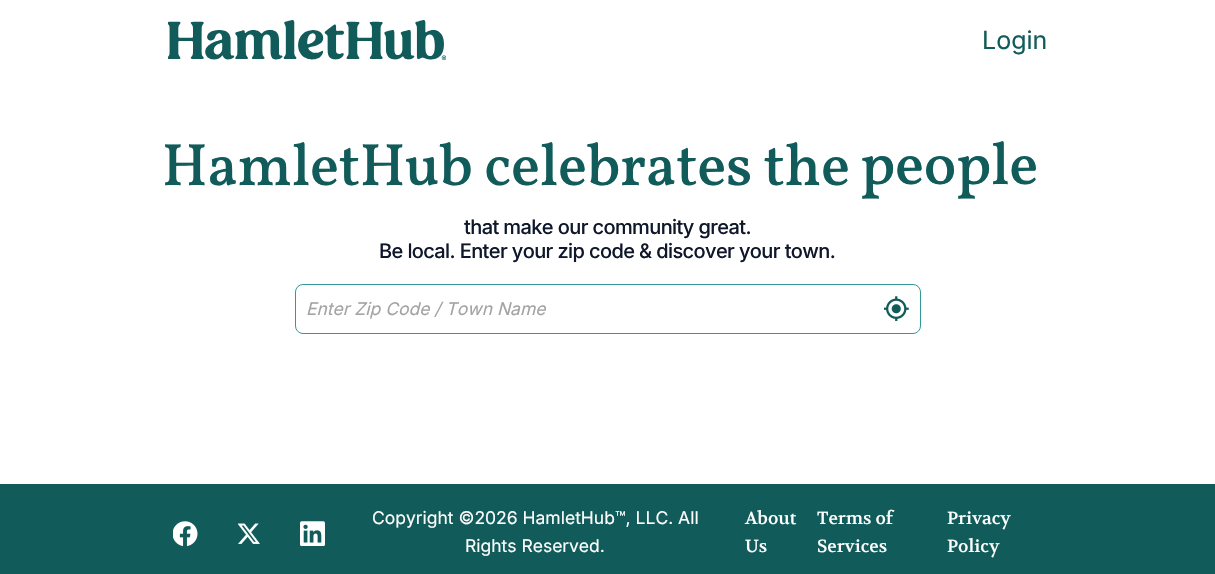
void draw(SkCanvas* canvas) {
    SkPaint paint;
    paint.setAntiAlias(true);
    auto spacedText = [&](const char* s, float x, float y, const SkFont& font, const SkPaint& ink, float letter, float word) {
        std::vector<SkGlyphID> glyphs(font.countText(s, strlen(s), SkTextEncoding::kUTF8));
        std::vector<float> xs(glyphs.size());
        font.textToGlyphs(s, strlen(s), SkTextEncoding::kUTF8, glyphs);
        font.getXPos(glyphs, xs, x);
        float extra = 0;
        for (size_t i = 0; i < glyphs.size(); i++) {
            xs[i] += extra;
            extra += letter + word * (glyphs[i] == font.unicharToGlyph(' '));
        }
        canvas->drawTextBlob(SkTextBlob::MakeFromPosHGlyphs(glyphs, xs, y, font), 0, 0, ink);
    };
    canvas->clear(0xFFFFFFFF);
    canvas->drawImageRect(SkImages::DeferredFromEncodedData(SkData::MakeFromFileName("img1.png")), SkRect::MakeXYWH(168, 20, 278, 40), SkSamplingOptions());
    SkFont font1(fontMgr->matchFamilyStyle("Inter", SkFontStyle::Normal()), 25);
    font1.setSubpixel(true);
    paint.setColor(0xFF115C5A);
    canvas->drawString("Login", 982, 49, font1, paint);
    SkFont font2(fontMgr->matchFamilyStyle("Vollkorn", SkFontStyle(500, SkFontStyle::kNormal_Width, SkFontStyle::kUpright_Slant)), 60);
    font2.setSubpixel(true);
    spacedText("HamletHub celebrates the", 162, 185, font2, paint, -0.4f, 0);
    spacedText("people", 860, 184, font2, paint, -0.4f, 0);
    SkFont font3(fontMgr->matchFamilyStyle("Inter", SkFontStyle(500, SkFontStyle::kNormal_Width, SkFontStyle::kUpright_Slant)), 20);
    font3.setSubpixel(true);
    paint.setColor(0xFF0F172A);
    spacedText("that make our community great.", 464, 234, font3, paint, -0.6f, 0);
    spacedText("Be local. Enter your zip code & discover your town.", 379, 258, font3, paint, -0.6f, 0);
    paint.setStyle(SkPaint::kStroke_Style);
    paint.setStrokeWidth(1);
    paint.setColor(0xFF329998);
    canvas->drawRoundRect(SkRect::MakeXYWH(295.5f, 284.5f, 625, 49), 7.5f, 7.5f, paint);
    SkFont font4(fontMgr->matchFamilyStyle("Inter", SkFontStyle::Italic()), 17.5f);
    font4.setSubpixel(true);
    paint.setStyle(SkPaint::kFill_Style);
    paint.setColor(0xFFA3A3A3);
    canvas->drawString("Enter Zip Code / Town Name", 306, 315, font4, paint);
    canvas->drawImageRect(SkImages::DeferredFromEncodedData(SkData::MakeFromFileName("img2.png")), SkRect::MakeXYWH(884, 296, 25, 25), SkSamplingOptions());
    paint.setColor(0xFF115C5A);
    canvas->drawRect(SkRect::MakeXYWH(0, 484, 1215, 90), paint);
    canvas->drawImageRect(SkImages::DeferredFromEncodedData(SkData::MakeFromFileName("img3.png")), SkRect::MakeXYWH(173, 521, 25, 25), SkSamplingOptions());
    canvas->drawImageRect(SkImages::DeferredFromEncodedData(SkData::MakeFromFileName("img4.png")), SkRect::MakeXYWH(238, 523, 22, 21), SkSamplingOptions());
    canvas->drawImageRect(SkImages::DeferredFromEncodedData(SkData::MakeFromFileName("img5.png")), SkRect::MakeXYWH(300, 521, 25, 25), SkSamplingOptions());
    SkFont font5(fontMgr->matchFamilyStyle("Inter", SkFontStyle::Normal()), 17.5f);
    font5.setSubpixel(true);
    paint.setColor(0xFFFFFFFF);
    canvas->drawString("Copyright ©2026 HamletHub™, LLC. All", 372, 524, font5, paint);
    canvas->drawString("Rights Reserved.", 465, 552, font5, paint);
    SkFont font6(fontMgr->matchFamilyStyle("Volkhov", SkFontStyle::Normal()), 17.5f);
    font6.setSubpixel(true);
    canvas->drawString("About", 745, 524, font6, paint);
    canvas->drawString("Us", 745, 552, font6, paint);
    canvas->drawString("Terms of", 817, 524, font6, paint);
    canvas->drawString("Services", 817, 552, font6, paint);
    canvas->drawString("Privacy", 947, 524, font6, paint);
    canvas->drawString("Policy", 947, 552, font6, paint);
}
